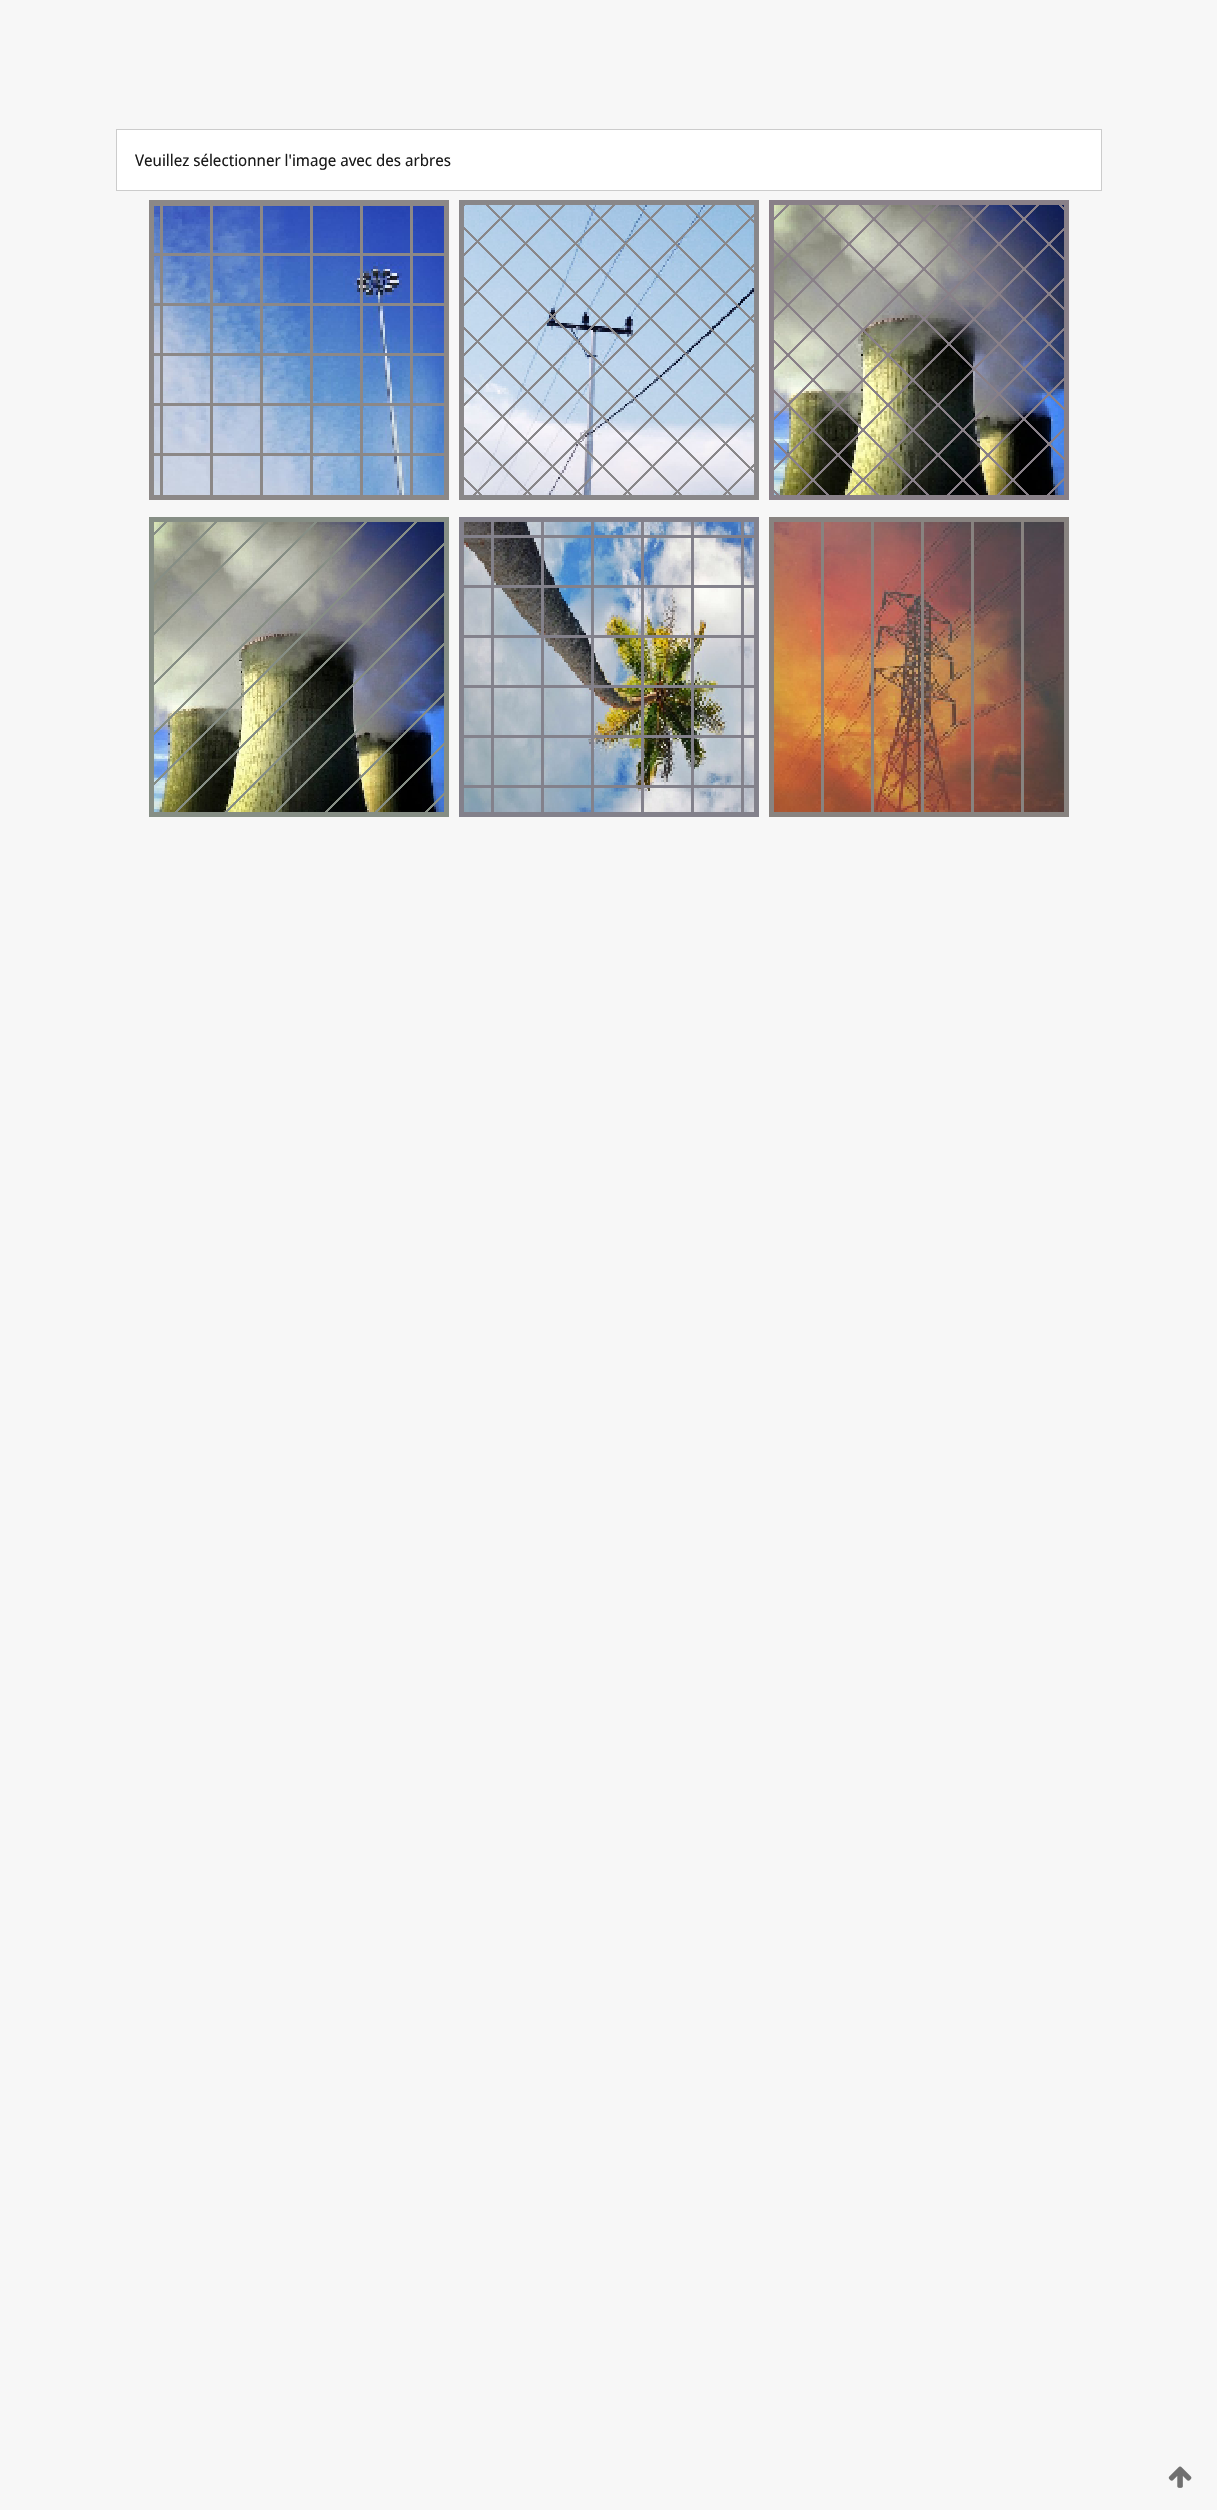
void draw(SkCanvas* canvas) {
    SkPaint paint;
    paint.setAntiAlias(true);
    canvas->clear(0xFFF7F7F7);
    paint.setColor(0xFFFFFFFF);
    canvas->drawRect(SkRect::MakeXYWH(116.5f, 129.5f, 985, 61), paint);
    paint.setStyle(SkPaint::kStroke_Style);
    paint.setStrokeWidth(1);
    paint.setColor(0xFFCCCCCC);
    canvas->drawRect(SkRect::MakeXYWH(116.5f, 129.5f, 985, 61), paint);
    SkFont font1(fontMgr->matchFamilyStyle("Noto Sans Display", SkFontStyle::Normal()), 16);
    font1.setSubpixel(true);
    paint.setStyle(SkPaint::kFill_Style);
    paint.setColor(0xFF1A1A1A);
    canvas->drawString("Veuillez sélectionner l'image avec des arbres", 135, 166, font1, paint);
    canvas->drawImageRect(SkImages::DeferredFromEncodedData(SkData::MakeFromFileName("img1.png")), SkRect::MakeXYWH(149, 200, 300, 300), SkSamplingOptions());
    canvas->drawImageRect(SkImages::DeferredFromEncodedData(SkData::MakeFromFileName("img2.png")), SkRect::MakeXYWH(459, 200, 300, 300), SkSamplingOptions());
    canvas->drawImageRect(SkImages::DeferredFromEncodedData(SkData::MakeFromFileName("img3.png")), SkRect::MakeXYWH(769, 200, 300, 300), SkSamplingOptions());
    canvas->drawImageRect(SkImages::DeferredFromEncodedData(SkData::MakeFromFileName("img4.png")), SkRect::MakeXYWH(149, 517, 300, 300), SkSamplingOptions());
    canvas->drawImageRect(SkImages::DeferredFromEncodedData(SkData::MakeFromFileName("img5.png")), SkRect::MakeXYWH(459, 517, 300, 300), SkSamplingOptions());
    canvas->drawImageRect(SkImages::DeferredFromEncodedData(SkData::MakeFromFileName("img6.png")), SkRect::MakeXYWH(769, 517, 300, 300), SkSamplingOptions());
    canvas->drawImageRect(SkImages::DeferredFromEncodedData(SkData::MakeFromFileName("img7.png")), SkRect::MakeXYWH(1168, 2466, 24, 22), SkSamplingOptions());
}
